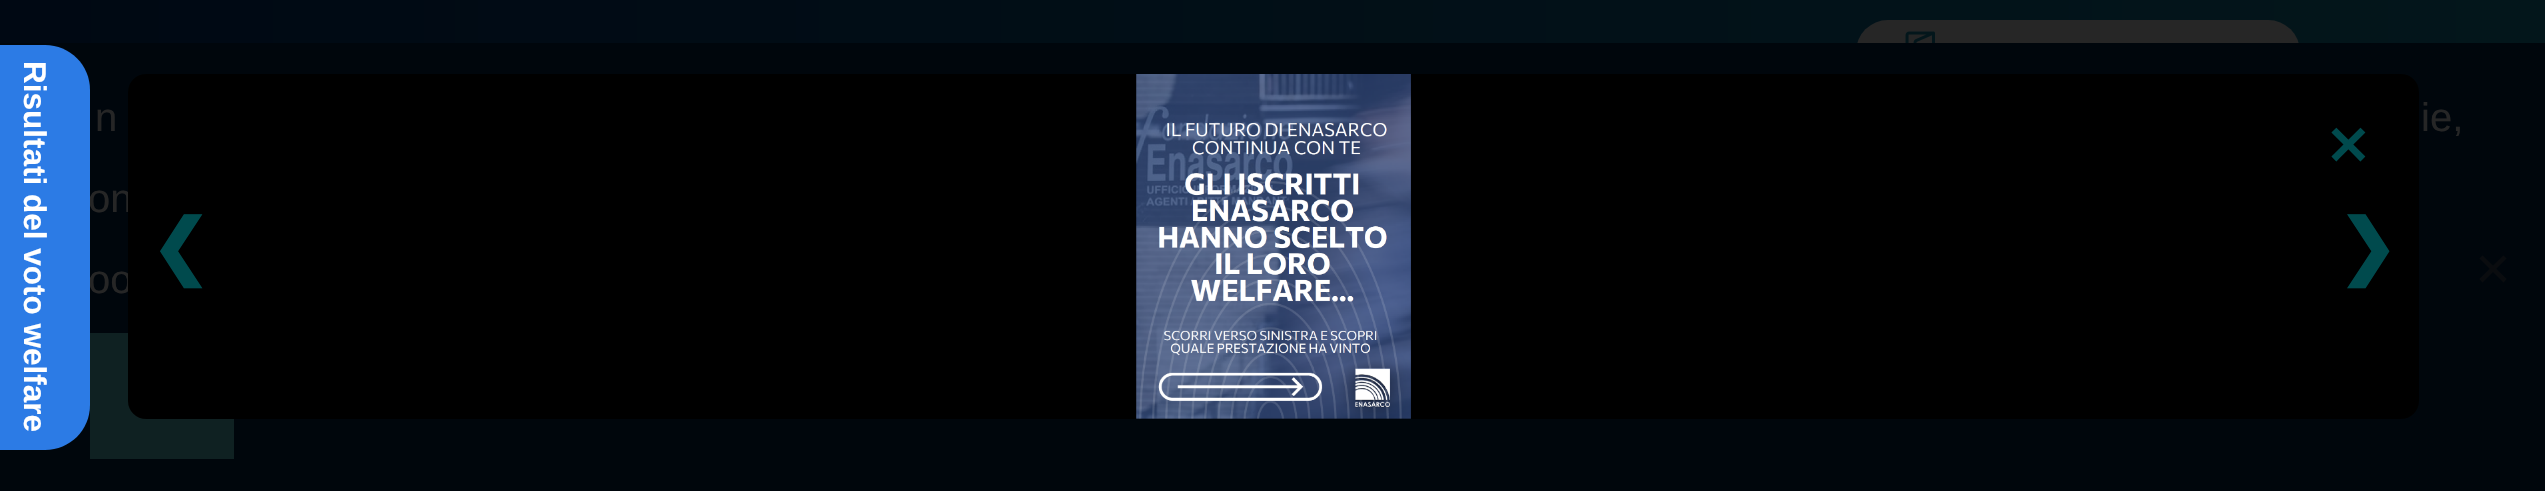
void draw(SkCanvas* canvas) {
    SkPaint paint;
    paint.setAntiAlias(true);
    canvas->clear(0xFFFFFFFF);
    {
        const SkColor colors[] = {0xFF000813, 0xFF03161B};
        const float stops[] = {0, 1};
        const SkPoint ends[] = {{0, 54}, {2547, 54}};
        paint.setShader(SkGradientShader::MakeLinear(ends, colors, stops, 2, SkTileMode::kClamp));
        paint.setAlpha(255);
    }
    canvas->drawRect(SkRect::MakeXYWH(0, 0, 2545, 43), paint);
    paint.setShader(nullptr);
    paint.setColor(0xFF262626);
    canvas->drawRoundRect(SkRect::MakeXYWH(1856, 20, 444, 68), 32, 32, paint);
    canvas->drawImageRect(SkImages::DeferredFromEncodedData(SkData::MakeFromFileName("img1.png")), SkRect::MakeXYWH(1905, 31, 30, 12), SkSamplingOptions());
    paint.setColor(0xFF00060C);
    canvas->drawRect(SkRect::MakeXYWH(0, 43, 2545, 448), paint);
    SkFont font1(fontMgr->matchFamilyStyle("Liberation Sans", SkFontStyle::Normal()), 40);
    font1.setSubpixel(true);
    paint.setColor(0xFF262626);
    canvas->drawString("on", 88, 212, font1, paint);
    canvas->drawString("oo", 88, 293, font1, paint);
    paint.setColor(0xFF2C7BE5);
    canvas->drawPath(SkPathBuilder().moveTo(-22, 45).lineTo(45, 45).cubicTo(70, 45, 90, 65, 90, 90).lineTo(90, 405).cubicTo(90, 430, 70, 450, 45, 450).lineTo(-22, 450).close().detach(), paint);
    SkFont font2(fontMgr->matchFamilyStyle("Liberation Sans", SkFontStyle::Bold()), 31.5f);
    font2.setSubpixel(true);
    paint.setColor(0xFFFFFFFF);
    canvas->save();
    canvas->rotate(90, 24, 61);
    canvas->drawString("Risultati del voto welfare", 24, 61, font2, paint);
    canvas->restore();
    paint.setColor(0xFF0F2122);
    canvas->drawRect(SkRect::MakeXYWH(90, 333, 144, 126), paint);
    paint.setColor(0xFF000000);
    canvas->drawRoundRect(SkRect::MakeXYWH(128, 74, 2291, 345), 18, 18, paint);
    SkFont font3(fontMgr->matchFamilyStyle("DejaVu Sans", SkFontStyle::Bold()), 54);
    font3.setSubpixel(true);
    paint.setColor(0xFF004A4D);
    canvas->drawString("✕", 2325, 165, font3, paint);
    SkFont font4(fontMgr->matchFamilyStyle("DejaVu Sans", SkFontStyle::Bold()), 72);
    font4.setSubpixel(true);
    canvas->drawString("❮", 150, 271, font4, paint);
    canvas->drawImageRect(SkImages::DeferredFromEncodedData(SkData::MakeFromFileName("img2.png")), SkRect::MakeXYWH(1136, 74, 275, 345), SkSamplingOptions());
    canvas->drawString("❯", 2337, 271, font4, paint);
    paint.setColor(0xFF262626);
    canvas->drawString("n", 95, 131, font1, paint);
    canvas->drawString("ie,", 2421, 131, font1, paint);
    paint.setColor(0xFF0A0C0F);
    canvas->drawPath(SkPathBuilder().moveTo(2503.5f, 255.5f).lineTo(2506.5f, 258.5f).lineTo(2482.5f, 282.5f).lineTo(2479.5f, 279).close().detach(), paint);
    canvas->drawPath(SkPathBuilder().moveTo(2479.5f, 258.5f).lineTo(2482.5f, 255.5f).lineTo(2506.5f, 279).lineTo(2503.5f, 282.5f).close().detach(), paint);
}
